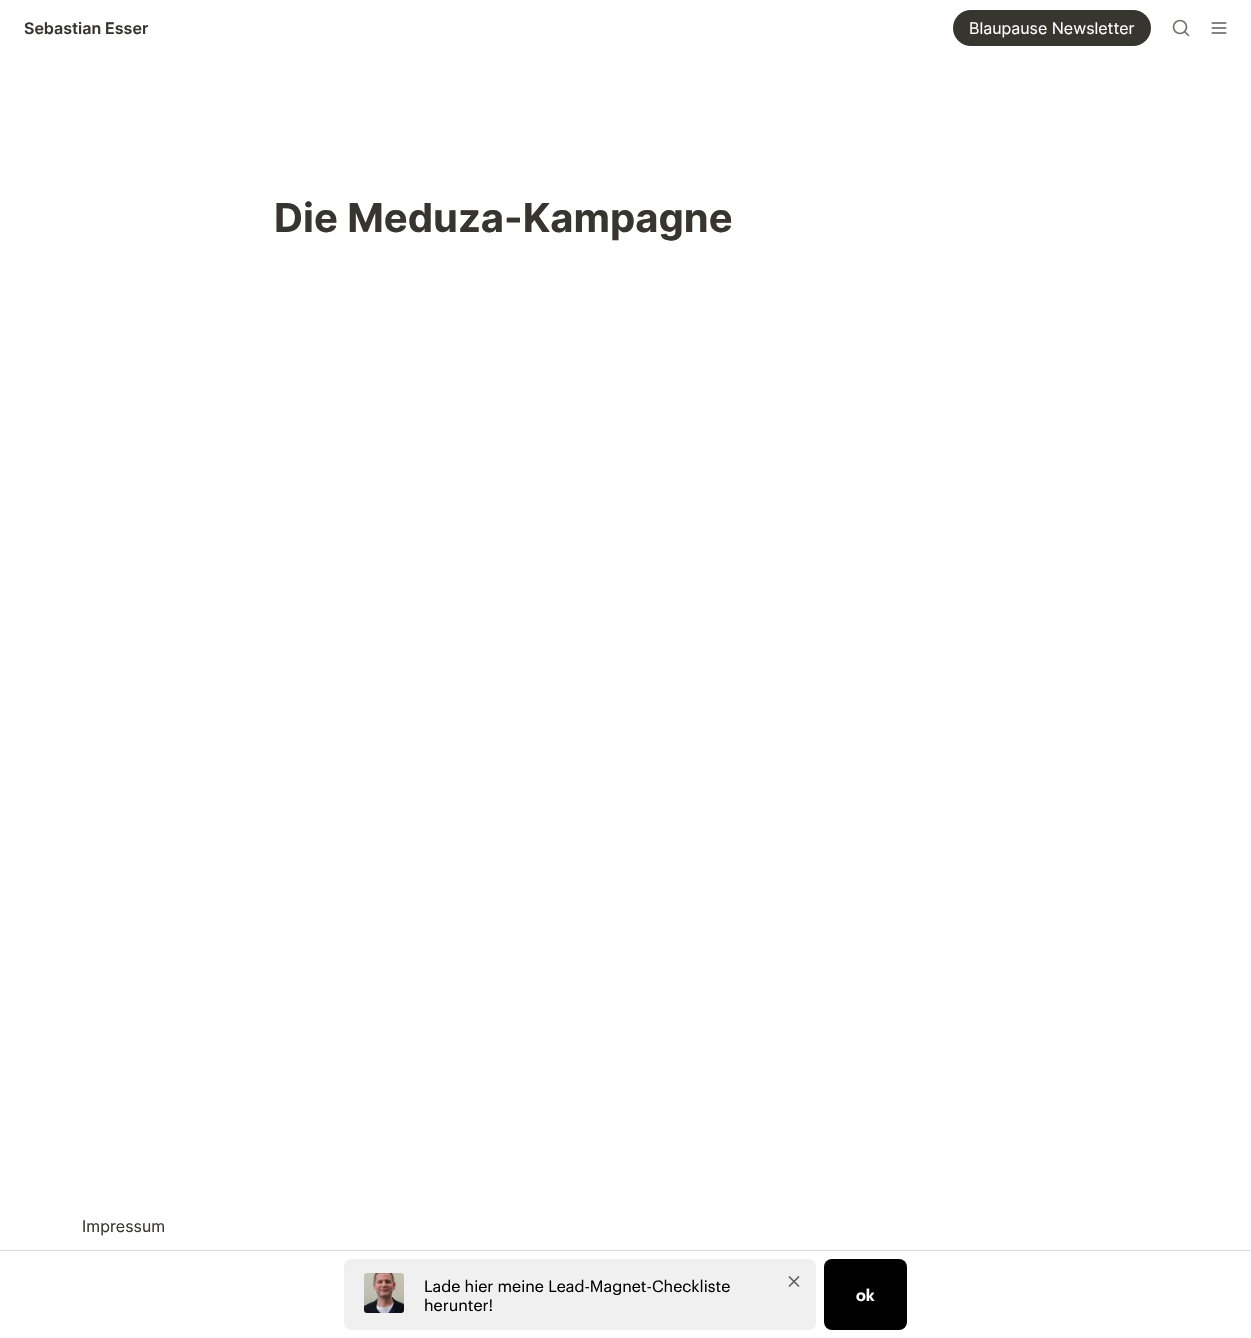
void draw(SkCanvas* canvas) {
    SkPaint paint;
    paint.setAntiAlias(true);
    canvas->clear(0xFFFFFFFF);
    SkFont font1(fontMgr->matchFamilyStyle("Inter", SkFontStyle(600, SkFontStyle::kNormal_Width, SkFontStyle::kUpright_Slant)), 16);
    font1.setSubpixel(true);
    paint.setColor(0xFF37352F);
    canvas->drawString("Sebastian Esser", 24, 34, font1, paint);
    canvas->drawRoundRect(SkRect::MakeXYWH(953, 10, 198, 36), 18, 18, paint);
    SkFont font2(fontMgr->matchFamilyStyle("Inter", SkFontStyle::Normal()), 16);
    font2.setSubpixel(true);
    paint.setColor(0xFFFFFFFF);
    canvas->drawString("Blaupause Newsletter", 969, 34, font2, paint);
    paint.setStyle(SkPaint::kStroke_Style);
    paint.setStrokeWidth(1.7f);
    paint.setColor(0xFF73726D);
    canvas->drawCircle(1180, 27, 6.5f, paint);
    paint.setStrokeCap(SkPaint::kRound_Cap);
    paint.setStrokeJoin(SkPaint::kRound_Join);
    canvas->drawPath(SkPathBuilder().moveTo(1188.5f, 35.5f).lineTo(1185, 32).detach(), paint);
    canvas->drawImageRect(SkImages::DeferredFromEncodedData(SkData::MakeFromFileName("img1.png")), SkRect::MakeXYWH(1211, 22, 16, 12), SkSamplingOptions());
    SkFont font3(fontMgr->matchFamilyStyle("Inter", SkFontStyle::Bold()), 40);
    font3.setSubpixel(true);
    paint.setStyle(SkPaint::kFill_Style);
    paint.setColor(0xFF37352F);
    canvas->drawString("Die Meduza-Kampagne", 274, 232, font3, paint);
    canvas->drawString("Impressum", 82, 1232, font2, paint);
    paint.setColor(0xFFDADADA);
    canvas->drawRect(SkRect::MakeXYWH(0, 1250, 1251, 1), paint);
    paint.setColor(0xFFF0F0F0);
    canvas->drawRoundRect(SkRect::MakeXYWH(344, 1259, 472, 71), 8, 8, paint);
    canvas->drawImageRect(SkImages::DeferredFromEncodedData(SkData::MakeFromFileName("img2.png")), SkRect::MakeXYWH(364, 1273, 40, 40), SkSamplingOptions());
    SkFont font4(fontMgr->matchFamilyStyle("Graphik", SkFontStyle::Normal()), 16);
    font4.setSubpixel(true);
    paint.setColor(0xFF000000);
    canvas->drawString("Lade hier meine Lead-Magnet-Checkliste", 424, 1292, font4, paint);
    canvas->drawString("herunter!", 424, 1311, font4, paint);
    paint.setStyle(SkPaint::kStroke_Style);
    paint.setStrokeWidth(1.6f);
    paint.setStrokeCap(SkPaint::kButt_Cap);
    paint.setStrokeJoin(SkPaint::kMiter_Join);
    paint.setColor(0xFF5D5D5D);
    canvas->drawPath(SkPathBuilder().moveTo(789, 1276.5f).lineTo(799, 1286.5f).moveTo(799, 1276.5f).lineTo(789, 1286.5f).detach(), paint);
    paint.setStyle(SkPaint::kFill_Style);
    paint.setColor(0xFF000000);
    canvas->drawRoundRect(SkRect::MakeXYWH(824, 1259, 83, 71), 8, 8, paint);
    SkFont font5(fontMgr->matchFamilyStyle("Graphik", SkFontStyle(600, SkFontStyle::kNormal_Width, SkFontStyle::kUpright_Slant)), 16);
    font5.setSubpixel(true);
    paint.setColor(0xFFFFFFFF);
    canvas->drawString("ok", 856, 1301, font5, paint);
}
